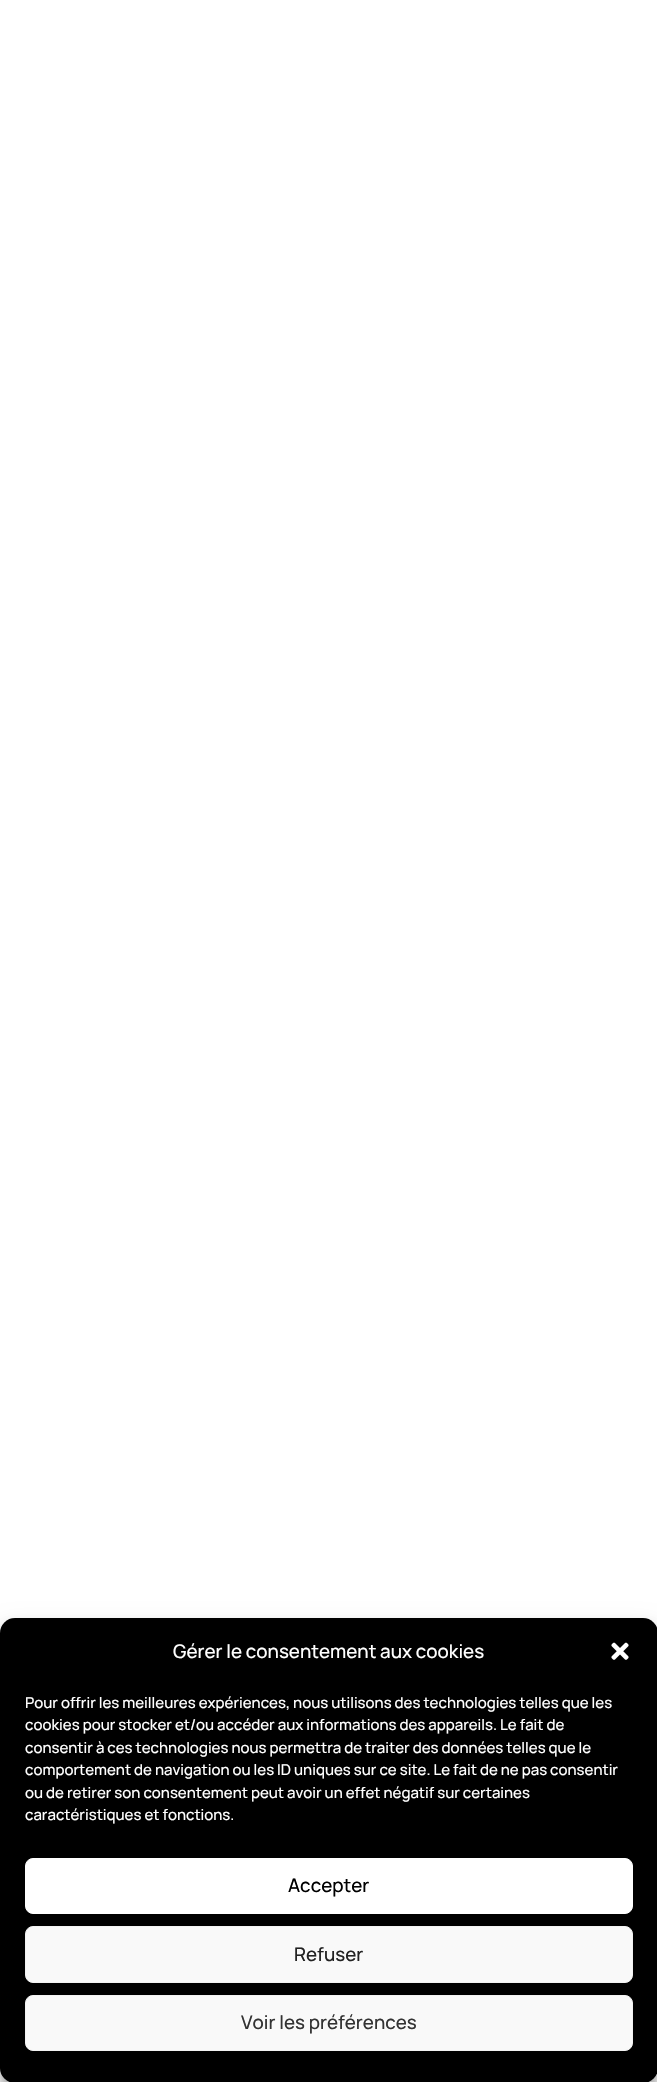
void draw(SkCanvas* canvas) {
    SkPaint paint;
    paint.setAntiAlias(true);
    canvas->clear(0xFFFFFFFF);
    paint.setColor(0x3B000000);
    paint.setMaskFilter(SkMaskFilter::MakeBlur(kNormal_SkBlurStyle, 4));
    canvas->drawRoundRect(SkRect::MakeXYWH(0, 1625, 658, 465), 15, 15, paint);
    paint.setMaskFilter(nullptr);
    paint.setColor(0x30000000);
    paint.setMaskFilter(SkMaskFilter::MakeBlur(kNormal_SkBlurStyle, 12.5f));
    canvas->drawRoundRect(SkRect::MakeXYWH(0, 1630, 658, 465), 15, 15, paint);
    paint.setMaskFilter(nullptr);
    paint.setColor(0xFF000000);
    canvas->drawRoundRect(SkRect::MakeXYWH(0, 1618, 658, 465), 15, 15, paint);
    SkFont font1(fontMgr->matchFamilyStyle("Manrope", SkFontStyle(500, SkFontStyle::kNormal_Width, SkFontStyle::kUpright_Slant)), 18.75f);
    font1.setSubpixel(true);
    paint.setColor(0xFFFFFFFF);
    canvas->drawString("Gérer le consentement aux cookies", 173, 1658, font1, paint);
    canvas->drawImageRect(SkImages::DeferredFromEncodedData(SkData::MakeFromFileName("img1.png")), SkRect::MakeXYWH(611, 1642, 18, 18), SkSamplingOptions());
    SkFont font2(fontMgr->matchFamilyStyle("Manrope", SkFontStyle(500, SkFontStyle::kNormal_Width, SkFontStyle::kUpright_Slant)), 15);
    font2.setSubpixel(true);
    canvas->drawString("Pour offrir les meilleures expériences, nous utilisons des technologies telles que les", 25, 1708, font2, paint);
    canvas->drawString("cookies pour stocker et/ou accéder aux informations des appareils. Le fait de", 25, 1730, font2, paint);
    canvas->drawString("consentir à ces technologies nous permettra de traiter des données telles que le", 25, 1753, font2, paint);
    canvas->drawString("comportement de navigation ou les ID uniques sur ce site. Le fait de ne pas consentir", 25, 1775, font2, paint);
    canvas->drawString("ou de retirer son consentement peut avoir un effet négatif sur certaines", 25, 1798, font2, paint);
    canvas->drawString("caractéristiques et fonctions.", 25, 1820, font2, paint);
    canvas->drawRoundRect(SkRect::MakeXYWH(25.5f, 1858.5f, 607, 55), 7.5f, 7.5f, paint);
    paint.setStyle(SkPaint::kStroke_Style);
    paint.setStrokeWidth(1);
    canvas->drawRoundRect(SkRect::MakeXYWH(25.5f, 1858.5f, 607, 55), 7.5f, 7.5f, paint);
    paint.setStyle(SkPaint::kFill_Style);
    paint.setColor(0xFF000000);
    canvas->drawString("Accepter", 288, 1892, font1, paint);
    paint.setColor(0xFFF9F9F9);
    canvas->drawRoundRect(SkRect::MakeXYWH(25.5f, 1926.5f, 607, 56), 7.5f, 7.5f, paint);
    paint.setStyle(SkPaint::kStroke_Style);
    paint.setColor(0xFFF2F2F2);
    canvas->drawRoundRect(SkRect::MakeXYWH(25.5f, 1926.5f, 607, 56), 7.5f, 7.5f, paint);
    paint.setStyle(SkPaint::kFill_Style);
    paint.setColor(0xFF222222);
    canvas->drawString("Refuser", 294, 1961, font1, paint);
    paint.setColor(0xFFF9F9F9);
    canvas->drawRoundRect(SkRect::MakeXYWH(25.5f, 1995.5f, 607, 55), 7.5f, 7.5f, paint);
    paint.setStyle(SkPaint::kStroke_Style);
    paint.setColor(0xFFF2F2F2);
    canvas->drawRoundRect(SkRect::MakeXYWH(25.5f, 1995.5f, 607, 55), 7.5f, 7.5f, paint);
    paint.setStyle(SkPaint::kFill_Style);
    paint.setColor(0xFF333333);
    canvas->drawString("Voir les préférences", 241, 2029, font1, paint);
}
